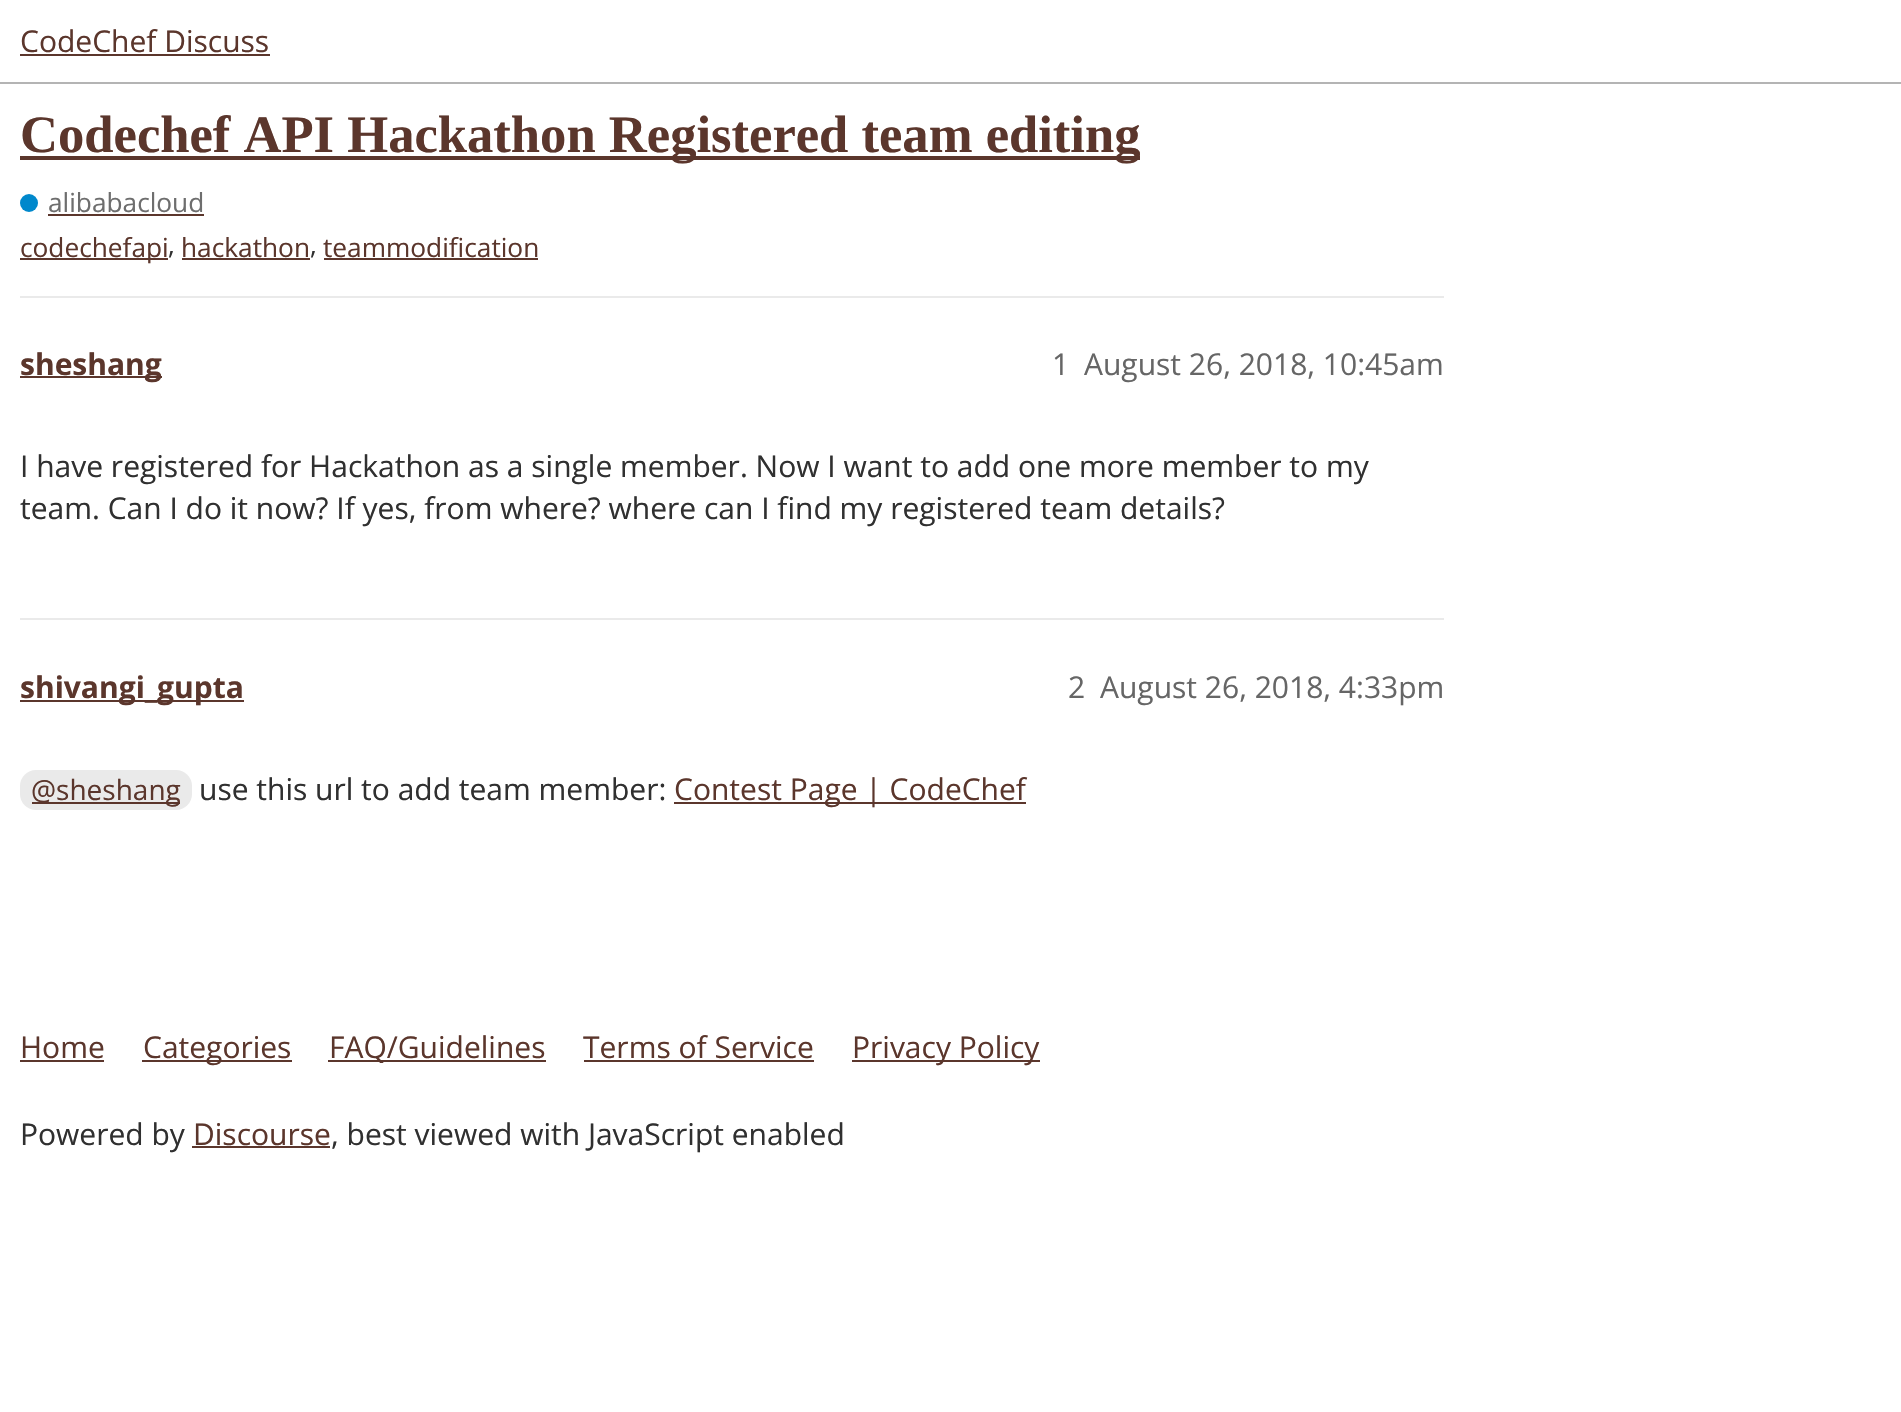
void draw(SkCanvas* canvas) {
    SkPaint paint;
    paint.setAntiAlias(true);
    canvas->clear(0xFFFFFFFF);
    paint.setColor(0xFFB4B4B4);
    canvas->drawRect(SkRect::MakeXYWH(0, 82, 1901, 2), paint);
    SkFont font1(fontMgr->matchFamilyStyle("Open Sans", SkFontStyle::Normal()), 30);
    font1.setSubpixel(true);
    paint.setColor(0xFF5B362C);
    canvas->drawString("CodeChef Discuss", 20, 52, font1, paint);
    canvas->drawRect(SkRect::MakeXYWH(20, 54, 250, 2), paint);
    canvas->drawRect(SkRect::MakeXYWH(20, 156, 1120, 4), paint);
    SkFont font2(fontMgr->matchFamilyStyle("Liberation Serif", SkFontStyle::Bold()), 52.6f);
    font2.setSubpixel(true);
    canvas->drawString("Codechef API Hackathon Registered team editing", 20, 152, font2, paint);
    paint.setColor(0xFF0088CC);
    canvas->drawCircle(29, 203, 9, paint);
    SkFont font3(fontMgr->matchFamilyStyle("Open Sans", SkFontStyle::Normal()), 26.25f);
    font3.setSubpixel(true);
    paint.setColor(0xFF6E6E6E);
    canvas->drawString("alibabacloud", 48, 212, font3, paint);
    paint.setColor(0xFF5B362C);
    canvas->drawRect(SkRect::MakeXYWH(48, 214, 156, 2), paint);
    canvas->drawRect(SkRect::MakeXYWH(20, 258, 148, 2), paint);
    canvas->drawString("codechefapi", 20, 257, font3, paint);
    paint.setColor(0xFF303030);
    canvas->drawString(",", 168, 254, font3, paint);
    paint.setColor(0xFF5B362C);
    canvas->drawString("hackathon", 181, 257, font3, paint);
    canvas->drawRect(SkRect::MakeXYWH(182, 258, 128, 2), paint);
    paint.setColor(0xFF303030);
    canvas->drawString(",", 310, 254, font3, paint);
    paint.setColor(0xFF5B362C);
    canvas->drawString("teammodification", 323, 257, font3, paint);
    canvas->drawRect(SkRect::MakeXYWH(324, 258, 214, 2), paint);
    paint.setColor(0xFFEAEAEA);
    canvas->drawRect(SkRect::MakeXYWH(20, 296, 1424, 2), paint);
    paint.setColor(0xFF5B362C);
    canvas->drawRect(SkRect::MakeXYWH(20, 376, 142, 2), paint);
    SkFont font4(fontMgr->matchFamilyStyle("Open Sans", SkFontStyle::Bold()), 30);
    font4.setSubpixel(true);
    canvas->drawString("sheshang", 20, 375, font4, paint);
    paint.setColor(0xFF666666);
    canvas->drawString("1", 1052, 375, font1, paint);
    canvas->drawString("August 26, 2018, 10:45am", 1084, 375, font1, paint);
    paint.setColor(0xFF303030);
    canvas->drawString("I have registered for Hackathon as a single member. Now I want to add one more member to my", 20, 477, font1, paint);
    canvas->drawString("team. Can I do it now? If yes, from where? where can I find my registered team details?", 20, 519, font1, paint);
    paint.setColor(0xFFEAEAEA);
    canvas->drawRect(SkRect::MakeXYWH(20, 618, 1424, 2), paint);
    paint.setColor(0xFF5B362C);
    canvas->drawRect(SkRect::MakeXYWH(20, 700, 224, 2), paint);
    canvas->drawString("shivangi_gupta", 20, 698, font4, paint);
    paint.setColor(0xFF666666);
    canvas->drawString("2", 1068, 698, font1, paint);
    canvas->drawString("August 26, 2018, 4:33pm", 1100, 698, font1, paint);
    paint.setColor(0xFFEAEAEA);
    canvas->drawRoundRect(SkRect::MakeXYWH(20, 770, 172, 40), 16, 16, paint);
    paint.setColor(0xFF5B362C);
    canvas->drawRect(SkRect::MakeXYWH(32, 802, 148, 2), paint);
    SkFont font5(fontMgr->matchFamilyStyle("Open Sans", SkFontStyle::Normal()), 28);
    font5.setSubpixel(true);
    canvas->drawString("@sheshang", 31, 800, font5, paint);
    paint.setColor(0xFF303030);
    canvas->drawString("use this url to add team member:", 199, 800, font1, paint);
    paint.setColor(0xFF5B362C);
    canvas->drawRect(SkRect::MakeXYWH(674, 802, 352, 2), paint);
    canvas->drawString("Contest Page | CodeChef", 674, 800, font1, paint);
    canvas->drawString("Home", 20, 1058, font1, paint);
    canvas->drawRect(SkRect::MakeXYWH(20, 1060, 84, 2), paint);
    canvas->drawRect(SkRect::MakeXYWH(142, 1060, 150, 2), paint);
    canvas->drawString("Categories", 143, 1058, font1, paint);
    canvas->drawRect(SkRect::MakeXYWH(328, 1060, 218, 2), paint);
    canvas->drawString("FAQ/Guidelines", 329, 1058, font1, paint);
    canvas->drawString("Terms of Service", 583, 1058, font1, paint);
    canvas->drawRect(SkRect::MakeXYWH(584, 1060, 230, 2), paint);
    canvas->drawRect(SkRect::MakeXYWH(852, 1060, 188, 2), paint);
    canvas->drawString("Privacy Policy", 852, 1058, font1, paint);
    paint.setColor(0xFF303030);
    canvas->drawString("Powered by", 20, 1145, font1, paint);
    paint.setColor(0xFF5B362C);
    canvas->drawString("Discourse", 193, 1145, font1, paint);
    canvas->drawRect(SkRect::MakeXYWH(192, 1146, 138, 2), paint);
    paint.setColor(0xFF303030);
    canvas->drawString(", best viewed with JavaScript enabled", 331, 1145, font1, paint);
}
